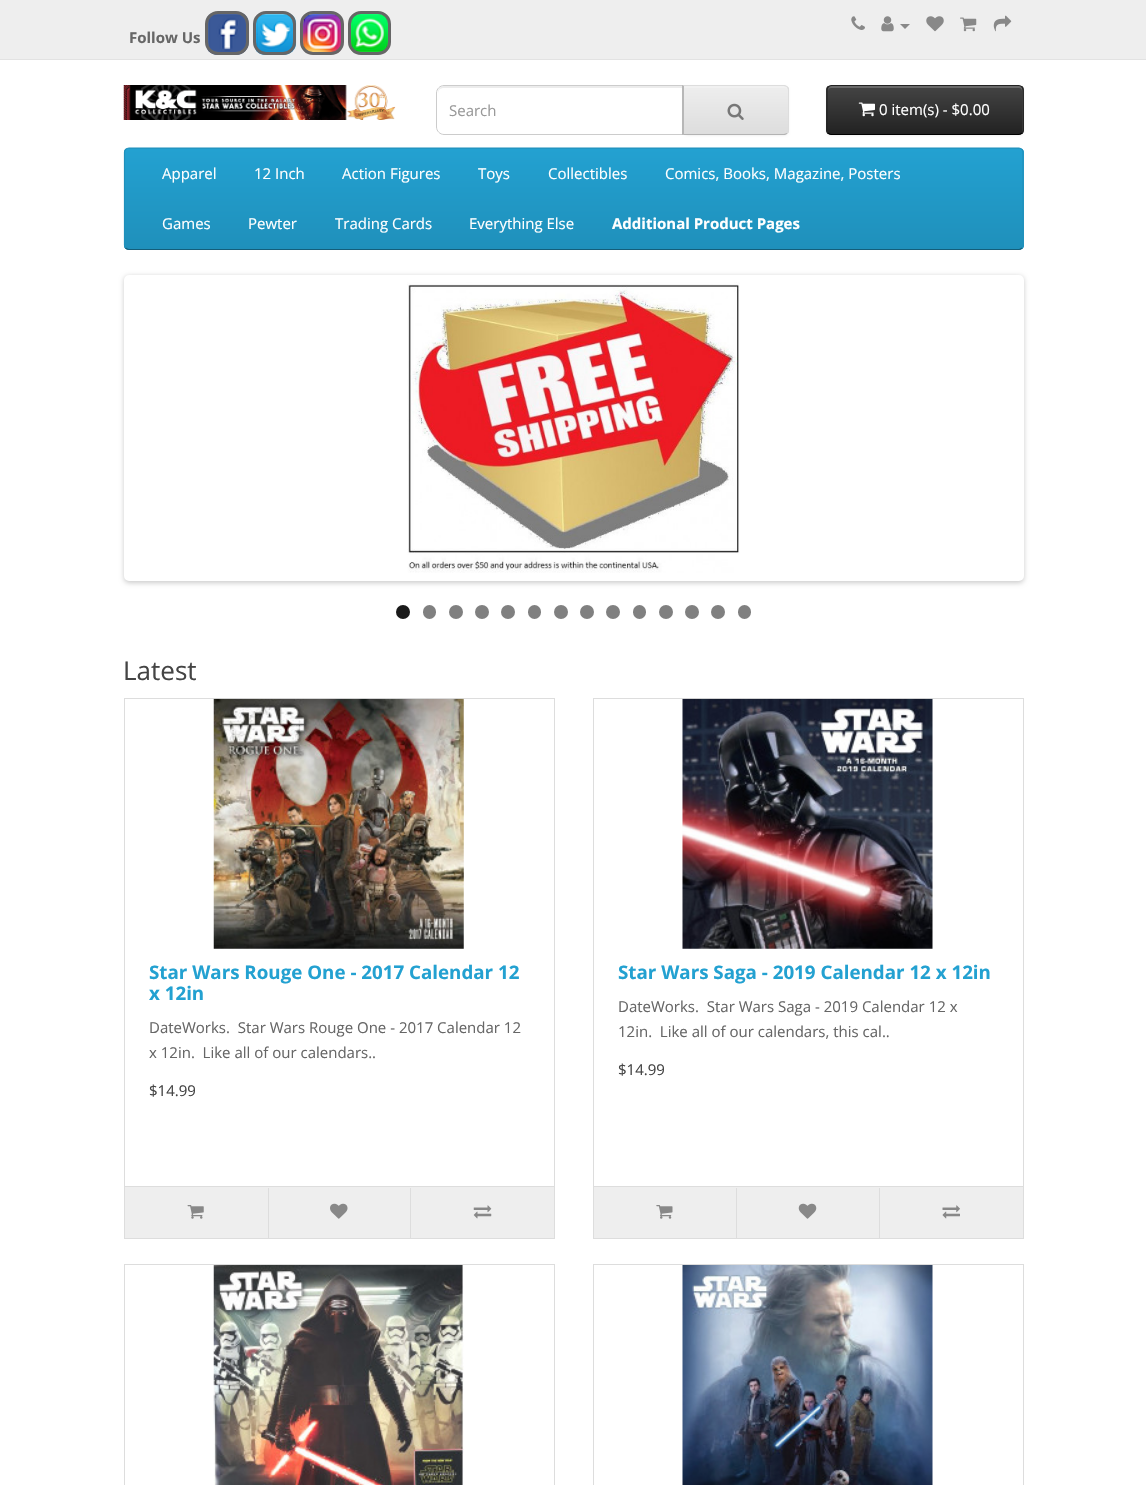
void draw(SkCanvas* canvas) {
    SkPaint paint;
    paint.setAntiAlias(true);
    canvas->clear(0xFFFFFFFF);
    paint.setColor(0xFFEEEEEE);
    canvas->drawRect(SkRect::MakeXYWH(0, 0, 1146, 59), paint);
    paint.setColor(0xFFE2E2E2);
    canvas->drawRect(SkRect::MakeXYWH(0, 59, 1146, 1), paint);
    canvas->drawImageRect(SkImages::DeferredFromEncodedData(SkData::MakeFromFileName("img1.png")), SkRect::MakeXYWH(851, 16, 14, 14), SkSamplingOptions());
    canvas->drawImageRect(SkImages::DeferredFromEncodedData(SkData::MakeFromFileName("img2.png")), SkRect::MakeXYWH(881, 16, 13, 16), SkSamplingOptions());
    paint.setColor(0xFF888888);
    canvas->drawPath(SkPathBuilder().moveTo(900, 24).lineTo(910, 24).lineTo(905, 29).close().detach(), paint);
    canvas->drawImageRect(SkImages::DeferredFromEncodedData(SkData::MakeFromFileName("img3.png")), SkRect::MakeXYWH(926, 16, 18, 16), SkSamplingOptions());
    canvas->drawImageRect(SkImages::DeferredFromEncodedData(SkData::MakeFromFileName("img4.png")), SkRect::MakeXYWH(960, 17, 17, 15), SkSamplingOptions());
    canvas->drawImageRect(SkImages::DeferredFromEncodedData(SkData::MakeFromFileName("img5.png")), SkRect::MakeXYWH(993, 15, 19, 17), SkSamplingOptions());
    SkFont font1(fontMgr->matchFamilyStyle("Open Sans", SkFontStyle::Bold()), 15);
    font1.setSubpixel(true);
    paint.setColor(0xFF666666);
    canvas->drawString("Follow Us", 129, 43, font1, paint);
    canvas->drawImageRect(SkImages::DeferredFromEncodedData(SkData::MakeFromFileName("img6.png")), SkRect::MakeXYWH(207, 13, 42, 42), SkSamplingOptions());
    paint.setStyle(SkPaint::kStroke_Style);
    paint.setStrokeWidth(3);
    canvas->drawRoundRect(SkRect::MakeXYWH(206.5f, 12.5f, 41, 41), 11.5f, 11.5f, paint);
    canvas->drawImageRect(SkImages::DeferredFromEncodedData(SkData::MakeFromFileName("img7.png")), SkRect::MakeXYWH(255, 13, 42, 42), SkSamplingOptions());
    canvas->drawRoundRect(SkRect::MakeXYWH(254.5f, 12.5f, 40, 41), 11.5f, 11.5f, paint);
    canvas->drawImageRect(SkImages::DeferredFromEncodedData(SkData::MakeFromFileName("img8.png")), SkRect::MakeXYWH(302, 13, 41, 41), SkSamplingOptions());
    canvas->drawRoundRect(SkRect::MakeXYWH(301.5f, 12.5f, 41, 41), 11.5f, 11.5f, paint);
    canvas->drawImageRect(SkImages::DeferredFromEncodedData(SkData::MakeFromFileName("img9.png")), SkRect::MakeXYWH(350, 13, 39, 40), SkSamplingOptions());
    canvas->drawRoundRect(SkRect::MakeXYWH(349.5f, 12.5f, 40, 41), 11.5f, 11.5f, paint);
    canvas->drawImageRect(SkImages::DeferredFromEncodedData(SkData::MakeFromFileName("img10.png")), SkRect::MakeXYWH(123, 85, 273, 35), SkSamplingOptions());
    paint.setStyle(SkPaint::kFill_Style);
    paint.setColor(0xFFECECEC);
    canvas->drawPath(SkPathBuilder().moveTo(444, 88).lineTo(682, 88).lineTo(682, 134).lineTo(683, 134).lineTo(683, 86).lineTo(444, 86).cubicTo(441, 86, 438, 89, 438, 92).lineTo(438, 94).cubicTo(438, 90, 440, 88, 444, 88).close().detach(), paint);
    paint.setStyle(SkPaint::kStroke_Style);
    paint.setStrokeWidth(1);
    paint.setColor(0xFFCCCCCC);
    canvas->drawPath(SkPathBuilder().moveTo(444, 85.5f).lineTo(683.5f, 85.5f).lineTo(683.5f, 134.5f).lineTo(444, 134.5f).cubicTo(440, 134.5f, 436.5f, 131, 436.5f, 127).lineTo(436.5f, 93).cubicTo(436.5f, 89, 440, 85.5f, 444, 85.5f).close().detach(), paint);
    SkFont font2(fontMgr->matchFamilyStyle("Open Sans", SkFontStyle::Normal()), 15);
    font2.setSubpixel(true);
    paint.setStyle(SkPaint::kFill_Style);
    paint.setColor(0xFF999999);
    canvas->drawString("Search", 449, 116, font2, paint);
    paint.setColor(0x0D000000);
    paint.setMaskFilter(SkMaskFilter::MakeBlur(kNormal_SkBlurStyle, 1));
    canvas->drawRoundRect(SkRect::MakeXYWH(683, 86, 106, 50), 5, 5, paint);
    paint.setMaskFilter(nullptr);
    canvas->save();
    canvas->clipPath(SkPathBuilder().moveTo(683, 85).lineTo(784, 85).cubicTo(787, 85, 789, 87, 789, 90).lineTo(789, 130).cubicTo(789, 133, 787, 135, 784, 135).lineTo(683, 135).close().detach(), true);
    {
        const SkColor colors[] = {0xFFEEEEEE, 0xFFDDDDDD};
        const float stops[] = {0, 1};
        const SkPoint ends[] = {{736, 86}, {736, 134}};
        paint.setShader(SkGradientShader::MakeLinear(ends, colors, stops, 2, SkTileMode::kClamp));
        paint.setAlpha(255);
    }
    canvas->drawRect(SkRect::MakeXYWH(684, 86, 105, 48), paint);
    canvas->restore();
    paint.setShader(nullptr);
    paint.setColor(0xFFF1F1F1);
    canvas->drawPath(SkPathBuilder().moveTo(684, 88).lineTo(784, 88).cubicTo(786, 88, 788, 89, 788, 91).lineTo(788, 90).cubicTo(788, 88, 786, 86, 784, 86).lineTo(684, 86).close().detach(), paint);
    paint.setColor(0xFFDDDDDD);
    canvas->drawPath(SkPathBuilder().moveTo(684, 86).lineTo(784, 86).lineTo(787, 87).lineTo(787, 86).lineTo(785, 85).lineTo(682, 85).close().detach(), paint);
    canvas->drawPath(SkPathBuilder().moveTo(789, 132).lineTo(787, 134).lineTo(787, 133).cubicTo(787, 132, 788, 131, 788, 130).lineTo(788, 90).cubicTo(788, 89, 787, 88, 787, 87).lineTo(787, 86).lineTo(789, 88).close().detach(), paint);
    paint.setColor(0xFFB3B3B3);
    canvas->drawPath(SkPathBuilder().moveTo(682, 135).lineTo(785, 135).lineTo(787, 134).lineTo(787, 133).lineTo(784, 134).lineTo(684, 134).close().detach(), paint);
    paint.setColor(0xFFB7B7B7);
    canvas->drawPath(SkPathBuilder().moveTo(682, 135).lineTo(684, 134).lineTo(684, 86).lineTo(682, 85).close().detach(), paint);
    canvas->drawImageRect(SkImages::DeferredFromEncodedData(SkData::MakeFromFileName("img11.png")), SkRect::MakeXYWH(727, 103, 17, 17), SkSamplingOptions());
    paint.setColor(0x0D000000);
    paint.setMaskFilter(SkMaskFilter::MakeBlur(kNormal_SkBlurStyle, 1));
    canvas->drawRoundRect(SkRect::MakeXYWH(826, 86, 198, 50), 5, 5, paint);
    paint.setMaskFilter(nullptr);
    canvas->save();
    canvas->clipPath(SkPathBuilder().moveTo(831, 85).lineTo(1019, 85).cubicTo(1022, 85, 1024, 87, 1024, 90).lineTo(1024, 130).cubicTo(1024, 133, 1022, 135, 1019, 135).lineTo(831, 135).cubicTo(828, 135, 826, 133, 826, 130).lineTo(826, 90).cubicTo(826, 87, 828, 85, 831, 85).close().detach(), true);
    {
        const SkColor colors[] = {0xFF444444, 0xFF222222};
        const float stops[] = {0, 1};
        const SkPoint ends[] = {{925, 86}, {925, 134}};
        paint.setShader(SkGradientShader::MakeLinear(ends, colors, stops, 2, SkTileMode::kClamp));
        paint.setAlpha(255);
    }
    canvas->drawRect(SkRect::MakeXYWH(826, 86, 198, 48), paint);
    canvas->restore();
    paint.setShader(nullptr);
    paint.setColor(0x33FFFFFF);
    canvas->drawPath(SkPathBuilder().moveTo(831, 88).lineTo(1019, 88).cubicTo(1021, 88, 1022, 89, 1022, 91).lineTo(1022, 133).cubicTo(1022, 132, 1023, 131, 1023, 130).lineTo(1023, 90).cubicTo(1023, 88, 1021, 86, 1019, 86).lineTo(832, 86).cubicTo(830, 86, 828, 88, 828, 90).lineTo(828, 91).cubicTo(828, 89, 829, 88, 831, 88).close().detach(), paint);
    paint.setStyle(SkPaint::kStroke_Style);
    paint.setStrokeWidth(1.2f);
    paint.setColor(0xFF000000);
    canvas->drawPath(SkPathBuilder().moveTo(1022, 133).cubicTo(1021, 134, 1020, 134.5f, 1019, 134.5f).lineTo(831, 134.5f).cubicTo(830, 134.5f, 829, 134, 828, 133).detach(), paint);
    paint.setColor(0xFF222222);
    canvas->drawPath(SkPathBuilder().moveTo(828, 133).cubicTo(827.5f, 132.5f, 827, 131, 827, 130).lineTo(827, 90).cubicTo(827, 89, 827.5f, 87.5f, 828, 87).cubicTo(829, 86, 830, 85.5f, 831, 85.5f).lineTo(1019, 85.5f).cubicTo(1020, 85.5f, 1021, 86, 1022, 87).cubicTo(1022.5f, 87.5f, 1023, 89, 1023, 90).lineTo(1023, 130).cubicTo(1023, 131, 1022.5f, 132.5f, 1022, 133).detach(), paint);
    canvas->drawImageRect(SkImages::DeferredFromEncodedData(SkData::MakeFromFileName("img12.png")), SkRect::MakeXYWH(858, 102, 17, 15), SkSamplingOptions());
    paint.setStyle(SkPaint::kFill_Style);
    paint.setColor(0xFFFFFFFF);
    canvas->drawString("0 item(s) - $0.00", 879, 115, font2, paint);
    paint.setColor(0xFF229AC8);
    canvas->drawRoundRect(SkRect::MakeXYWH(124, 148, 900, 102), 5, 5, paint);
    canvas->save();
    canvas->clipPath(SkPathBuilder().moveTo(129, 148).lineTo(1019, 148).cubicTo(1022, 148, 1024, 150, 1024, 153).lineTo(1024, 245).cubicTo(1024, 248, 1022, 250, 1019, 250).lineTo(129, 250).cubicTo(126, 250, 124, 248, 124, 245).lineTo(124, 153).cubicTo(124, 150, 126, 148, 129, 148).close().detach(), true);
    {
        const SkColor colors[] = {0xFF23A1D1, 0xFF1F90BB};
        const float stops[] = {0, 1};
        const SkPoint ends[] = {{574, 149}, {574, 249}};
        paint.setShader(SkGradientShader::MakeLinear(ends, colors, stops, 2, SkTileMode::kClamp));
        paint.setAlpha(255);
    }
    canvas->drawRect(SkRect::MakeXYWH(124, 149, 900, 100), paint);
    canvas->restore();
    paint.setStyle(SkPaint::kStroke_Style);
    paint.setShader(nullptr);
    paint.setColor(0xFF145E7A);
    canvas->drawPath(SkPathBuilder().moveTo(1022, 248).cubicTo(1021, 249, 1020, 249.5f, 1019, 249.5f).lineTo(129, 249.5f).cubicTo(127.5f, 249.5f, 126.5f, 249, 125.5f, 248).detach(), paint);
    paint.setColor(0xFF1F90BB);
    canvas->drawPath(SkPathBuilder().moveTo(125.5f, 248).cubicTo(125, 247.5f, 124.5f, 246, 124.5f, 245).lineTo(124.5f, 152.5f).cubicTo(124.5f, 151.5f, 125, 150, 125.5f, 149.5f).cubicTo(126.5f, 148.5f, 127.5f, 148, 129, 148).lineTo(1019, 148).cubicTo(1020, 148, 1021, 148.5f, 1022, 149.5f).cubicTo(1022.5f, 150, 1023, 151.5f, 1023, 152.5f).lineTo(1023, 245).cubicTo(1023, 246, 1022.5f, 247.5f, 1022, 248).detach(), paint);
    paint.setStyle(SkPaint::kFill_Style);
    paint.setColor(0xFFFFFFFF);
    canvas->drawString("Apparel", 162, 179, font2, paint);
    canvas->drawString("12 Inch", 254, 179, font2, paint);
    canvas->drawString("Action Figures", 342, 179, font2, paint);
    canvas->drawString("Toys", 478, 179, font2, paint);
    canvas->drawString("Collectibles", 548, 179, font2, paint);
    canvas->drawString("Comics, Books, Magazine, Posters", 665, 179, font2, paint);
    canvas->drawString("Games", 162, 229, font2, paint);
    canvas->drawString("Pewter", 248, 229, font2, paint);
    canvas->drawString("Trading Cards", 335, 229, font2, paint);
    canvas->drawString("Everything Else", 469, 229, font2, paint);
    canvas->drawString("Additional Product Pages", 612, 229, font1, paint);
    paint.setColor(0x33000000);
    paint.setMaskFilter(SkMaskFilter::MakeBlur(kNormal_SkBlurStyle, 2.5f));
    canvas->drawRoundRect(SkRect::MakeXYWH(124, 276, 900, 307), 5, 5, paint);
    paint.setMaskFilter(nullptr);
    paint.setColor(0xFFFFFFFF);
    canvas->drawRoundRect(SkRect::MakeXYWH(126.5f, 277.5f, 895, 301), 2.5f, 2.5f, paint);
    paint.setStyle(SkPaint::kStroke_Style);
    paint.setStrokeWidth(5);
    canvas->drawRoundRect(SkRect::MakeXYWH(126.5f, 277.5f, 895, 301), 2.5f, 2.5f, paint);
    canvas->drawImageRect(SkImages::DeferredFromEncodedData(SkData::MakeFromFileName("img13.png")), SkRect::MakeXYWH(407, 282, 333, 291), SkSamplingOptions());
    paint.setStyle(SkPaint::kFill_Style);
    paint.setColor(0xFF1A1A1A);
    canvas->drawCircle(403, 612, 7, paint);
    paint.setColor(0xFF808080);
    canvas->drawRoundRect(SkRect::MakeXYWH(423, 605, 13, 14), 6.5f, 6.5f, paint);
    canvas->drawCircle(456, 612, 7, paint);
    canvas->drawCircle(482, 612, 7, paint);
    canvas->drawCircle(508, 612, 7, paint);
    canvas->drawRoundRect(SkRect::MakeXYWH(528, 605, 13, 14), 6.5f, 6.5f, paint);
    canvas->drawCircle(561, 612, 7, paint);
    canvas->drawCircle(587, 612, 7, paint);
    canvas->drawCircle(613, 612, 7, paint);
    canvas->drawRoundRect(SkRect::MakeXYWH(633, 605, 13, 14), 6.5f, 6.5f, paint);
    canvas->drawCircle(666, 612, 7, paint);
    canvas->drawCircle(692, 612, 7, paint);
    canvas->drawCircle(718, 612, 7, paint);
    canvas->drawRoundRect(SkRect::MakeXYWH(738, 605, 13, 14), 6.5f, 6.5f, paint);
    SkFont font3(fontMgr->matchFamilyStyle("Open Sans", SkFontStyle::Normal()), 26);
    font3.setSubpixel(true);
    paint.setColor(0xFF444444);
    canvas->drawString("Latest", 123, 680, font3, paint);
    paint.setStyle(SkPaint::kStroke_Style);
    paint.setStrokeWidth(1);
    paint.setColor(0xFFDDDDDD);
    canvas->drawRect(SkRect::MakeXYWH(124.5f, 698.5f, 430, 540), paint);
    canvas->drawImageRect(SkImages::DeferredFromEncodedData(SkData::MakeFromFileName("img14.png")), SkRect::MakeXYWH(213, 698, 251, 251), SkSamplingOptions());
    SkFont font4(fontMgr->matchFamilyStyle("Open Sans", SkFontStyle::Bold()), 18.75f);
    font4.setSubpixel(true);
    paint.setStyle(SkPaint::kFill_Style);
    paint.setColor(0xFF23A1D1);
    canvas->drawString("Star Wars Rouge One - 2017 Calendar 12", 149, 979, font4, paint);
    canvas->drawString("x 12in", 149, 1000, font4, paint);
    paint.setColor(0xFF666666);
    canvas->drawString("DateWorks.  Star Wars Rouge One - 2017 Calendar 12", 149, 1033, font2, paint);
    canvas->drawString("x 12in.  Like all of our calendars..", 149, 1058, font2, paint);
    paint.setColor(0xFF444444);
    canvas->drawString("$14.99", 149, 1096, font2, paint);
    paint.setColor(0xFFEEEEEE);
    canvas->drawRect(SkRect::MakeXYWH(125, 1187, 429, 51), paint);
    paint.setColor(0xFFDDDDDD);
    canvas->drawRect(SkRect::MakeXYWH(125, 1186, 429, 1), paint);
    canvas->drawImageRect(SkImages::DeferredFromEncodedData(SkData::MakeFromFileName("img15.png")), SkRect::MakeXYWH(187, 1205, 17, 14), SkSamplingOptions());
    canvas->drawRect(SkRect::MakeXYWH(268, 1188, 1, 50), paint);
    canvas->drawImageRect(SkImages::DeferredFromEncodedData(SkData::MakeFromFileName("img16.png")), SkRect::MakeXYWH(330, 1203, 18, 16), SkSamplingOptions());
    canvas->drawRect(SkRect::MakeXYWH(410, 1188, 1, 50), paint);
    canvas->drawImageRect(SkImages::DeferredFromEncodedData(SkData::MakeFromFileName("img17.png")), SkRect::MakeXYWH(473, 1205, 19, 14), SkSamplingOptions());
    paint.setStyle(SkPaint::kStroke_Style);
    canvas->drawRect(SkRect::MakeXYWH(593.5f, 698.5f, 430, 540), paint);
    canvas->drawImageRect(SkImages::DeferredFromEncodedData(SkData::MakeFromFileName("img18.png")), SkRect::MakeXYWH(682, 698, 251, 251), SkSamplingOptions());
    paint.setStyle(SkPaint::kFill_Style);
    paint.setColor(0xFF23A1D1);
    canvas->drawString("Star Wars Saga - 2019 Calendar 12 x 12in", 618, 979, font4, paint);
    paint.setColor(0xFF666666);
    canvas->drawString("DateWorks.  Star Wars Saga - 2019 Calendar 12 x", 618, 1012, font2, paint);
    canvas->drawString("12in.  Like all of our calendars, this cal..", 618, 1037, font2, paint);
    paint.setColor(0xFF444444);
    canvas->drawString("$14.99", 618, 1075, font2, paint);
    paint.setColor(0xFFEEEEEE);
    canvas->drawRect(SkRect::MakeXYWH(594, 1187, 429, 51), paint);
    paint.setColor(0xFFDDDDDD);
    canvas->drawRect(SkRect::MakeXYWH(594, 1186, 429, 1), paint);
    canvas->drawImageRect(SkImages::DeferredFromEncodedData(SkData::MakeFromFileName("img19.png")), SkRect::MakeXYWH(656, 1205, 17, 14), SkSamplingOptions());
    canvas->drawRect(SkRect::MakeXYWH(736, 1188, 1, 50), paint);
    canvas->drawImageRect(SkImages::DeferredFromEncodedData(SkData::MakeFromFileName("img20.png")), SkRect::MakeXYWH(798, 1203, 19, 16), SkSamplingOptions());
    canvas->drawRect(SkRect::MakeXYWH(879, 1188, 1, 50), paint);
    canvas->drawImageRect(SkImages::DeferredFromEncodedData(SkData::MakeFromFileName("img21.png")), SkRect::MakeXYWH(942, 1205, 18, 14), SkSamplingOptions());
    paint.setStyle(SkPaint::kStroke_Style);
    canvas->drawRect(SkRect::MakeXYWH(124.5f, 1264.5f, 430, 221), paint);
    canvas->drawImageRect(SkImages::DeferredFromEncodedData(SkData::MakeFromFileName("img22.png")), SkRect::MakeXYWH(213, 1265, 251, 220), SkSamplingOptions());
    canvas->drawRect(SkRect::MakeXYWH(593.5f, 1264.5f, 430, 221), paint);
    canvas->drawImageRect(SkImages::DeferredFromEncodedData(SkData::MakeFromFileName("img23.png")), SkRect::MakeXYWH(682, 1265, 251, 220), SkSamplingOptions());
}
